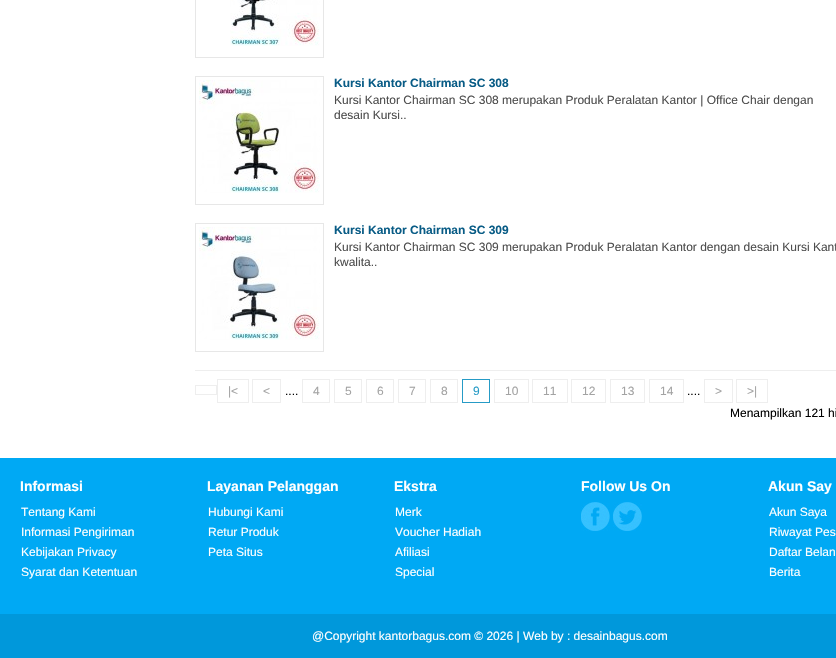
void draw(SkCanvas* canvas) {
    SkPaint paint;
    paint.setAntiAlias(true);
    canvas->clear(0xFFFFFFFF);
    paint.setStyle(SkPaint::kStroke_Style);
    paint.setStrokeWidth(1);
    paint.setColor(0xFFE7E7E7);
    canvas->drawRect(SkRect::MakeXYWH(195.5f, -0.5f, 128, 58), paint);
    canvas->drawImageRect(SkImages::DeferredFromEncodedData(SkData::MakeFromFileName("img1.png")), SkRect::MakeXYWH(230, 0, 90, 46), SkSamplingOptions());
    canvas->drawRect(SkRect::MakeXYWH(195.5f, 76.5f, 128, 128), paint);
    canvas->drawImageRect(SkImages::DeferredFromEncodedData(SkData::MakeFromFileName("img2.png")), SkRect::MakeXYWH(199, 80, 121, 113), SkSamplingOptions());
    SkFont font1(fontMgr->matchFamilyStyle("Liberation Sans", SkFontStyle::Bold()), 12);
    font1.setSubpixel(true);
    paint.setStyle(SkPaint::kFill_Style);
    paint.setColor(0xFF095C86);
    canvas->drawString("Kursi Kantor Chairman SC 308", 334, 87, font1, paint);
    SkFont font2(fontMgr->matchFamilyStyle("Liberation Sans", SkFontStyle::Normal()), 12);
    font2.setSubpixel(true);
    paint.setColor(0xFF4D4D4D);
    canvas->drawString("Kursi Kantor Chairman SC 308 merupakan Produk Peralatan Kantor | Office Chair dengan", 334, 104, font2, paint);
    canvas->drawString("desain Kursi..", 334, 119, font2, paint);
    paint.setStyle(SkPaint::kStroke_Style);
    paint.setColor(0xFFE7E7E7);
    canvas->drawRect(SkRect::MakeXYWH(195.5f, 223.5f, 128, 128), paint);
    canvas->drawImageRect(SkImages::DeferredFromEncodedData(SkData::MakeFromFileName("img3.png")), SkRect::MakeXYWH(199, 227, 121, 113), SkSamplingOptions());
    paint.setStyle(SkPaint::kFill_Style);
    paint.setColor(0xFF095C86);
    canvas->drawString("Kursi Kantor Chairman SC 309", 334, 234, font1, paint);
    paint.setColor(0xFF4D4D4D);
    canvas->drawString("Kursi Kantor Chairman SC 309 merupakan Produk Peralatan Kantor dengan desain Kursi Kant", 334, 251, font2, paint);
    canvas->drawString("kwalita..", 334, 266, font2, paint);
    paint.setColor(0xFFEEEEEE);
    canvas->drawRect(SkRect::MakeXYWH(195, 370, 641, 1), paint);
    paint.setStyle(SkPaint::kStroke_Style);
    canvas->drawRect(SkRect::MakeXYWH(195.5f, 385.5f, 21, 9), paint);
    canvas->drawRect(SkRect::MakeXYWH(217.5f, 379.5f, 31, 23), paint);
    paint.setStyle(SkPaint::kFill_Style);
    paint.setColor(0xFFA3A3A3);
    canvas->drawString("|<", 228, 395, font2, paint);
    paint.setStyle(SkPaint::kStroke_Style);
    paint.setColor(0xFFEEEEEE);
    canvas->drawRect(SkRect::MakeXYWH(252.5f, 379.5f, 28, 23), paint);
    paint.setStyle(SkPaint::kFill_Style);
    paint.setColor(0xFFA3A3A3);
    canvas->drawString("<", 263, 395, font2, paint);
    paint.setColor(0xFF000000);
    canvas->drawString("....", 285, 395, font2, paint);
    paint.setStyle(SkPaint::kStroke_Style);
    paint.setColor(0xFFEEEEEE);
    canvas->drawRect(SkRect::MakeXYWH(302.5f, 379.5f, 27, 23), paint);
    paint.setStyle(SkPaint::kFill_Style);
    paint.setColor(0xFFA3A3A3);
    canvas->drawString("4", 313, 395, font2, paint);
    paint.setStyle(SkPaint::kStroke_Style);
    paint.setColor(0xFFEEEEEE);
    canvas->drawRect(SkRect::MakeXYWH(334.5f, 379.5f, 27, 23), paint);
    paint.setStyle(SkPaint::kFill_Style);
    paint.setColor(0xFFA3A3A3);
    canvas->drawString("5", 345, 395, font2, paint);
    paint.setStyle(SkPaint::kStroke_Style);
    paint.setColor(0xFFEEEEEE);
    canvas->drawRect(SkRect::MakeXYWH(366.5f, 379.5f, 27, 23), paint);
    paint.setStyle(SkPaint::kFill_Style);
    paint.setColor(0xFFA3A3A3);
    canvas->drawString("6", 377, 395, font2, paint);
    paint.setStyle(SkPaint::kStroke_Style);
    paint.setColor(0xFFEEEEEE);
    canvas->drawRect(SkRect::MakeXYWH(398.5f, 379.5f, 27, 23), paint);
    paint.setStyle(SkPaint::kFill_Style);
    paint.setColor(0xFFA3A3A3);
    canvas->drawString("7", 409, 395, font2, paint);
    paint.setStyle(SkPaint::kStroke_Style);
    paint.setColor(0xFFEEEEEE);
    canvas->drawRect(SkRect::MakeXYWH(430.5f, 379.5f, 27, 23), paint);
    paint.setStyle(SkPaint::kFill_Style);
    paint.setColor(0xFFA3A3A3);
    canvas->drawString("8", 441, 395, font2, paint);
    paint.setStyle(SkPaint::kStroke_Style);
    paint.setColor(0xFF269BC6);
    canvas->drawRect(SkRect::MakeXYWH(462.5f, 379.5f, 27, 23), paint);
    paint.setStyle(SkPaint::kFill_Style);
    canvas->drawString("9", 473, 395, font2, paint);
    paint.setStyle(SkPaint::kStroke_Style);
    paint.setColor(0xFFEEEEEE);
    canvas->drawRect(SkRect::MakeXYWH(494.5f, 379.5f, 34, 23), paint);
    paint.setStyle(SkPaint::kFill_Style);
    paint.setColor(0xFFA3A3A3);
    canvas->drawString("10", 505, 395, font2, paint);
    paint.setStyle(SkPaint::kStroke_Style);
    paint.setColor(0xFFEEEEEE);
    canvas->drawRect(SkRect::MakeXYWH(532.5f, 379.5f, 35, 23), paint);
    paint.setStyle(SkPaint::kFill_Style);
    paint.setColor(0xFFA3A3A3);
    canvas->drawString("11", 543, 395, font2, paint);
    paint.setStyle(SkPaint::kStroke_Style);
    paint.setColor(0xFFEEEEEE);
    canvas->drawRect(SkRect::MakeXYWH(571.5f, 379.5f, 34, 23), paint);
    paint.setStyle(SkPaint::kFill_Style);
    paint.setColor(0xFFA3A3A3);
    canvas->drawString("12", 582, 395, font2, paint);
    paint.setStyle(SkPaint::kStroke_Style);
    paint.setColor(0xFFEEEEEE);
    canvas->drawRect(SkRect::MakeXYWH(610.5f, 379.5f, 34, 23), paint);
    paint.setStyle(SkPaint::kFill_Style);
    paint.setColor(0xFFA3A3A3);
    canvas->drawString("13", 621, 395, font2, paint);
    paint.setStyle(SkPaint::kStroke_Style);
    paint.setColor(0xFFEEEEEE);
    canvas->drawRect(SkRect::MakeXYWH(649.5f, 379.5f, 34, 23), paint);
    paint.setStyle(SkPaint::kFill_Style);
    paint.setColor(0xFFA3A3A3);
    canvas->drawString("14", 660, 395, font2, paint);
    paint.setColor(0xFF000000);
    canvas->drawString("....", 687, 395, font2, paint);
    paint.setStyle(SkPaint::kStroke_Style);
    paint.setColor(0xFFEEEEEE);
    canvas->drawRect(SkRect::MakeXYWH(704.5f, 379.5f, 28, 23), paint);
    paint.setStyle(SkPaint::kFill_Style);
    paint.setColor(0xFFA3A3A3);
    canvas->drawString(">", 715, 395, font2, paint);
    paint.setStyle(SkPaint::kStroke_Style);
    paint.setColor(0xFFEEEEEE);
    canvas->drawRect(SkRect::MakeXYWH(736.5f, 379.5f, 31, 23), paint);
    paint.setStyle(SkPaint::kFill_Style);
    paint.setColor(0xFFA3A3A3);
    canvas->drawString(">|", 747, 395, font2, paint);
    paint.setColor(0xFF000000);
    canvas->drawString("Menampilkan 121 hi", 730, 417, font2, paint);
    paint.setColor(0xFF00A9F4);
    canvas->drawRect(SkRect::MakeXYWH(0, 458, 836, 156), paint);
    SkFont font3(fontMgr->matchFamilyStyle("Liberation Sans", SkFontStyle::Bold()), 14);
    font3.setSubpixel(true);
    paint.setColor(0xFFFFFFFF);
    canvas->drawString("Informasi", 20, 491, font3, paint);
    canvas->drawString("Tentang Kami", 21, 516, font2, paint);
    canvas->drawString("Informasi Pengiriman", 21, 536, font2, paint);
    canvas->drawString("Kebijakan Privacy", 21, 556, font2, paint);
    canvas->drawString("Syarat dan Ketentuan", 21, 576, font2, paint);
    canvas->drawString("Layanan Pelanggan", 207, 491, font3, paint);
    canvas->drawString("Hubungi Kami", 208, 516, font2, paint);
    canvas->drawString("Retur Produk", 208, 536, font2, paint);
    canvas->drawString("Peta Situs", 208, 556, font2, paint);
    canvas->drawString("Ekstra", 394, 491, font3, paint);
    canvas->drawString("Merk", 395, 516, font2, paint);
    canvas->drawString("Voucher Hadiah", 395, 536, font2, paint);
    canvas->drawString("Afiliasi", 395, 556, font2, paint);
    canvas->drawString("Special", 395, 576, font2, paint);
    canvas->drawString("Follow Us On", 581, 491, font3, paint);
    canvas->drawImageRect(SkImages::DeferredFromEncodedData(SkData::MakeFromFileName("img4.png")), SkRect::MakeXYWH(581, 502, 29, 29), SkSamplingOptions());
    canvas->drawImageRect(SkImages::DeferredFromEncodedData(SkData::MakeFromFileName("img5.png")), SkRect::MakeXYWH(613, 502, 29, 29), SkSamplingOptions());
    canvas->drawString("Akun Say", 768, 491, font3, paint);
    canvas->drawString("Akun Saya", 769, 516, font2, paint);
    canvas->drawString("Riwayat Pes", 769, 536, font2, paint);
    canvas->drawString("Daftar Belan", 769, 556, font2, paint);
    canvas->drawString("Berita", 769, 576, font2, paint);
    paint.setColor(0xFF0098DB);
    canvas->drawRect(SkRect::MakeXYWH(0, 614, 836, 44), paint);
    paint.setColor(0xFFFFFFFF);
    canvas->drawString("@Copyright kantorbagus.com © 2026 | Web by : desainbagus.com", 312, 640, font2, paint);
}
